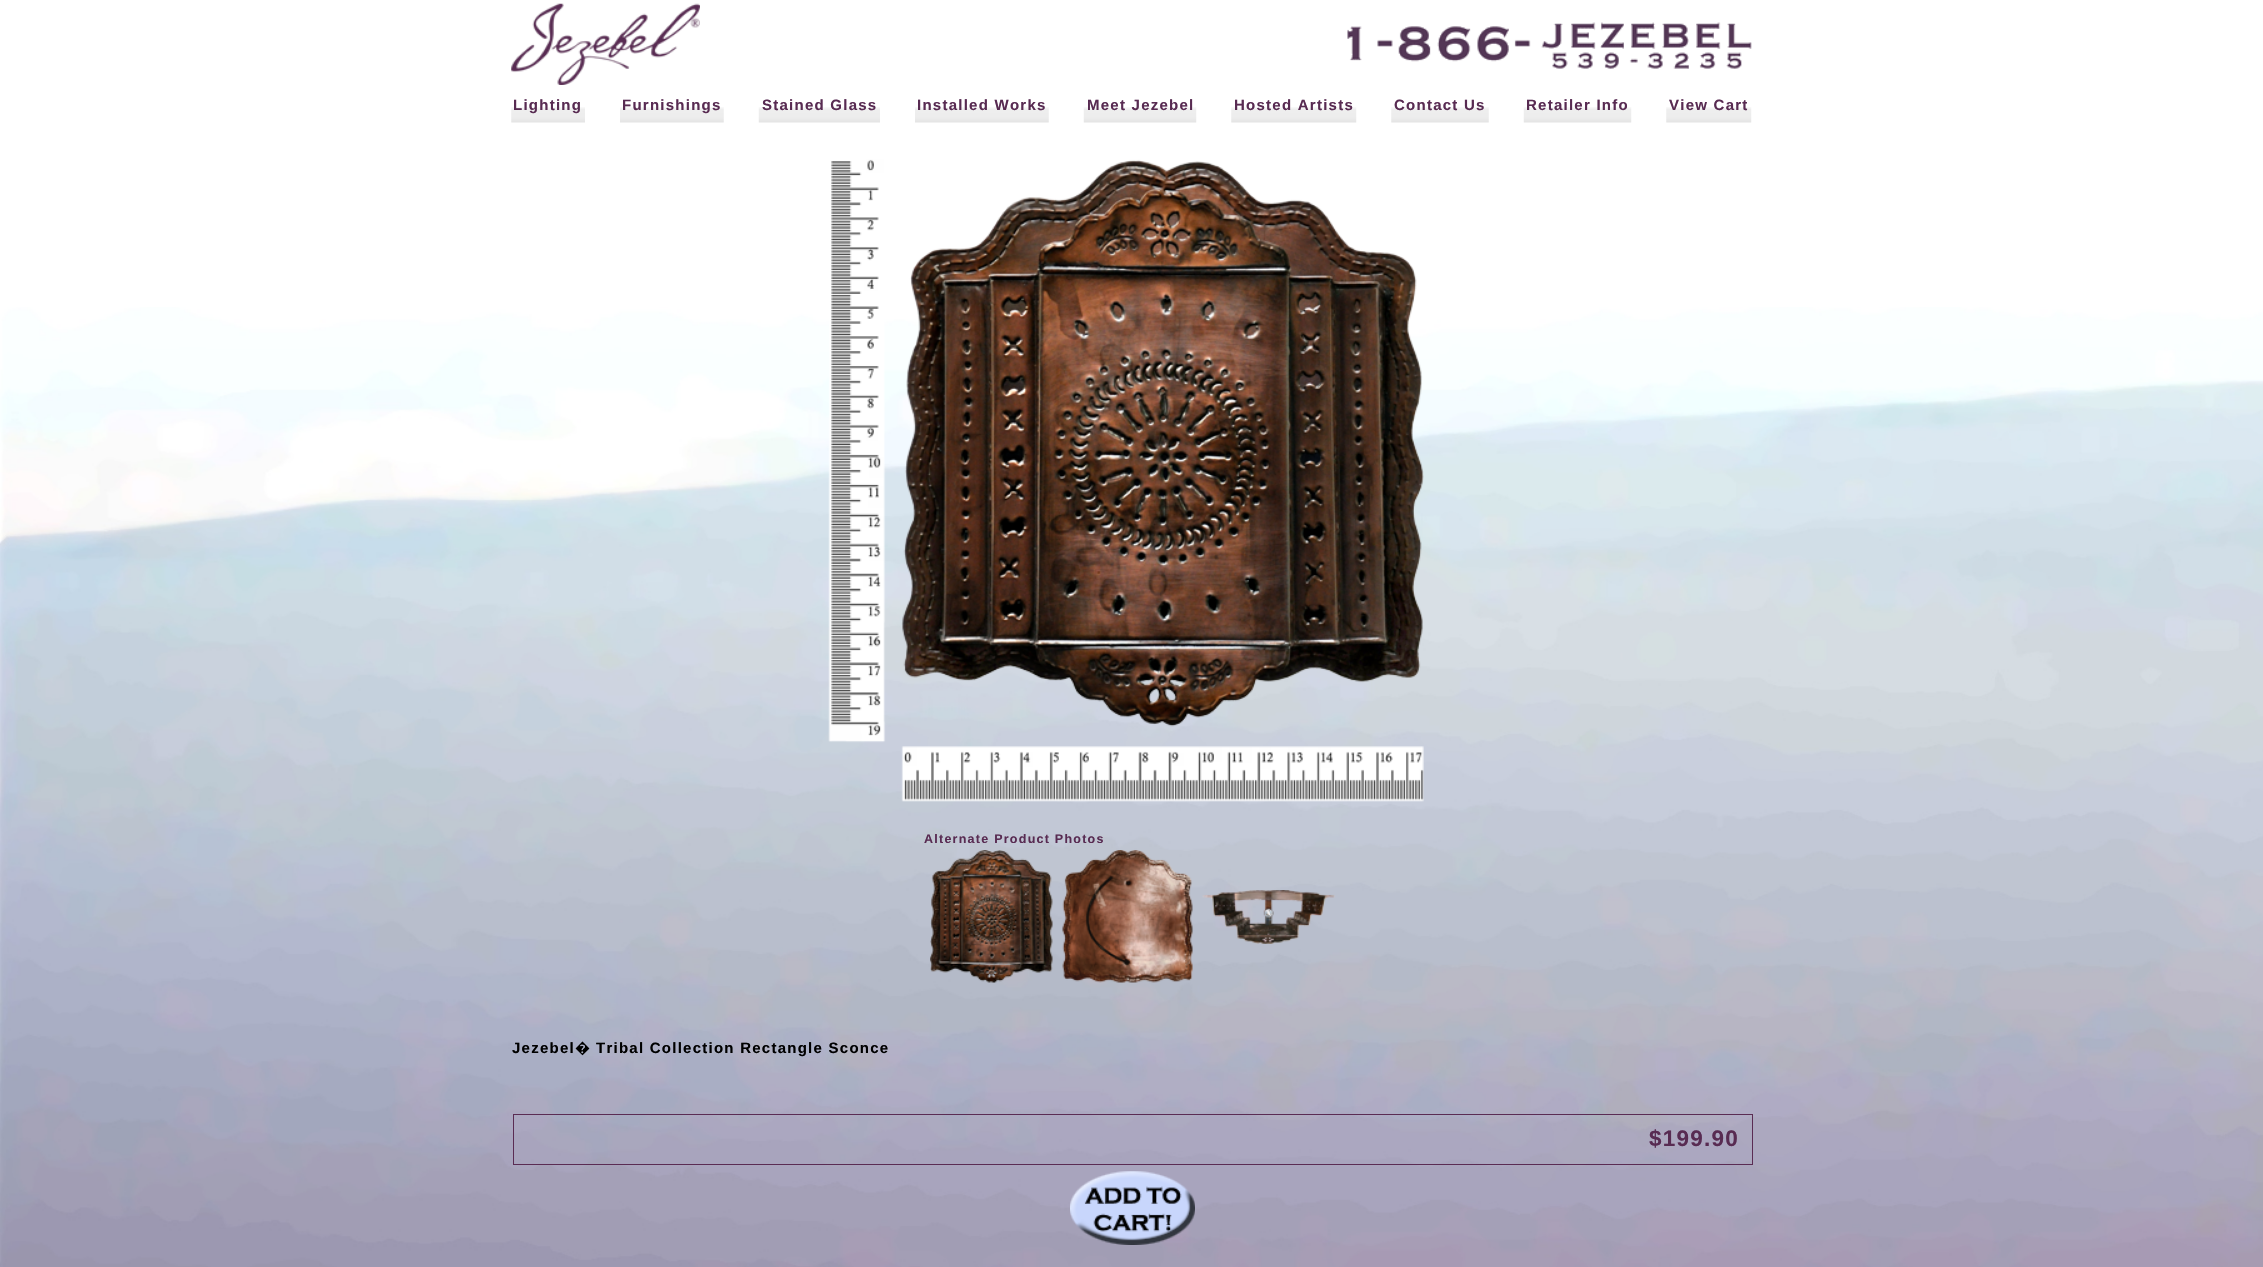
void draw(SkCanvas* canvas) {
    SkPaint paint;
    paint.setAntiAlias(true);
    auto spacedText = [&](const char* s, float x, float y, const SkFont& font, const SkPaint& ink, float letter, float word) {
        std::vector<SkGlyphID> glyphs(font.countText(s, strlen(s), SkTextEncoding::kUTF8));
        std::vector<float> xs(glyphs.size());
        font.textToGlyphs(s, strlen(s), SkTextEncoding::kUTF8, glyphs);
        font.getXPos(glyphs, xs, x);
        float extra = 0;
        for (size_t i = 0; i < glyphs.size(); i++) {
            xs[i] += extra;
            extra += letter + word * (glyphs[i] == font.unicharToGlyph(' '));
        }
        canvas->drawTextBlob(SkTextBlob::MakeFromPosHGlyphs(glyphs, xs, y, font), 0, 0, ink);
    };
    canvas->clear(0xFFFFFFFF);
    canvas->drawImageRect(SkImages::DeferredFromEncodedData(SkData::MakeFromFileName("img1.png")), SkRect::MakeXYWH(0, 307, 2263, 960), SkSamplingOptions());
    canvas->drawImageRect(SkImages::DeferredFromEncodedData(SkData::MakeFromFileName("img2.png")), SkRect::MakeXYWH(511, 3, 189, 82), SkSamplingOptions());
    canvas->drawImageRect(SkImages::DeferredFromEncodedData(SkData::MakeFromFileName("img3.png")), SkRect::MakeXYWH(1347, 22, 405, 47), SkSamplingOptions());
    canvas->drawImageRect(SkImages::DeferredFromEncodedData(SkData::MakeFromFileName("img4.png")), SkRect::MakeXYWH(511, 107, 74, 16), SkSamplingOptions());
    SkFont font1(fontMgr->matchFamilyStyle("Liberation Sans", SkFontStyle::Bold()), 15);
    font1.setSubpixel(true);
    paint.setColor(0xFF582B52);
    spacedText("Lighting", 513, 110, font1, paint, 1.25f, 0);
    canvas->drawImageRect(SkImages::DeferredFromEncodedData(SkData::MakeFromFileName("img5.png")), SkRect::MakeXYWH(620, 107, 104, 16), SkSamplingOptions());
    spacedText("Furnishings", 622, 110, font1, paint, 1.25f, 0);
    canvas->drawImageRect(SkImages::DeferredFromEncodedData(SkData::MakeFromFileName("img6.png")), SkRect::MakeXYWH(758, 107, 122, 16), SkSamplingOptions());
    spacedText("Stained Glass", 762, 110, font1, paint, 1.25f, 0);
    canvas->drawImageRect(SkImages::DeferredFromEncodedData(SkData::MakeFromFileName("img7.png")), SkRect::MakeXYWH(915, 107, 134, 16), SkSamplingOptions());
    spacedText("Installed Works", 917, 110, font1, paint, 1.25f, 0);
    canvas->drawImageRect(SkImages::DeferredFromEncodedData(SkData::MakeFromFileName("img8.png")), SkRect::MakeXYWH(1083, 107, 114, 16), SkSamplingOptions());
    spacedText("Meet Jezebel", 1087, 110, font1, paint, 1.25f, 0);
    canvas->drawImageRect(SkImages::DeferredFromEncodedData(SkData::MakeFromFileName("img9.png")), SkRect::MakeXYWH(1231, 107, 126, 16), SkSamplingOptions());
    spacedText("Hosted Artists", 1234, 110, font1, paint, 1.25f, 0);
    canvas->drawImageRect(SkImages::DeferredFromEncodedData(SkData::MakeFromFileName("img10.png")), SkRect::MakeXYWH(1391, 107, 98, 16), SkSamplingOptions());
    spacedText("Contact Us", 1394, 110, font1, paint, 1.25f, 0);
    canvas->drawImageRect(SkImages::DeferredFromEncodedData(SkData::MakeFromFileName("img11.png")), SkRect::MakeXYWH(1523, 107, 109, 16), SkSamplingOptions());
    spacedText("Retailer Info", 1526, 110, font1, paint, 1.25f, 0);
    canvas->drawImageRect(SkImages::DeferredFromEncodedData(SkData::MakeFromFileName("img12.png")), SkRect::MakeXYWH(1666, 107, 86, 16), SkSamplingOptions());
    spacedText("View Cart", 1669, 110, font1, paint, 1.25f, 0);
    canvas->drawImageRect(SkImages::DeferredFromEncodedData(SkData::MakeFromFileName("img13.png")), SkRect::MakeXYWH(828, 159, 596, 643), SkSamplingOptions());
    SkFont font2(fontMgr->matchFamilyStyle("Liberation Sans", SkFontStyle::Bold()), 12.5f);
    font2.setSubpixel(true);
    spacedText("Alternate Product Photos", 924, 843, font2, paint, 1.25f, 0);
    canvas->drawImageRect(SkImages::DeferredFromEncodedData(SkData::MakeFromFileName("img14.png")), SkRect::MakeXYWH(930, 850, 123, 133), SkSamplingOptions());
    canvas->drawImageRect(SkImages::DeferredFromEncodedData(SkData::MakeFromFileName("img15.png")), SkRect::MakeXYWH(1062, 850, 131, 133), SkSamplingOptions());
    canvas->drawImageRect(SkImages::DeferredFromEncodedData(SkData::MakeFromFileName("img16.png")), SkRect::MakeXYWH(1202, 890, 133, 54), SkSamplingOptions());
    paint.setColor(0xFF000000);
    spacedText("Jezebel", 512, 1053, font1, paint, 1.25f, 0);
    SkFont font3(fontMgr->matchFamilyStyle("Noto Sans", SkFontStyle::Bold()), 15);
    font3.setSubpixel(true);
    spacedText("�", 575, 1053, font3, paint, 1.25f, 0);
    spacedText("Tribal Collection Rectangle Sconce", 596, 1053, font1, paint, 1.25f, 0);
    paint.setStyle(SkPaint::kStroke_Style);
    paint.setStrokeWidth(1);
    paint.setColor(0xFF5A2C53);
    canvas->drawRect(SkRect::MakeXYWH(513.5f, 1114.5f, 1239, 50), paint);
    SkFont font4(fontMgr->matchFamilyStyle("Liberation Sans", SkFontStyle::Bold()), 22.5f);
    font4.setSubpixel(true);
    paint.setStyle(SkPaint::kFill_Style);
    paint.setColor(0xFF582B52);
    spacedText("$199.90", 1649, 1146, font4, paint, 1.25f, 0);
    canvas->drawImageRect(SkImages::DeferredFromEncodedData(SkData::MakeFromFileName("img17.png")), SkRect::MakeXYWH(1070, 1171, 125, 74), SkSamplingOptions());
}
